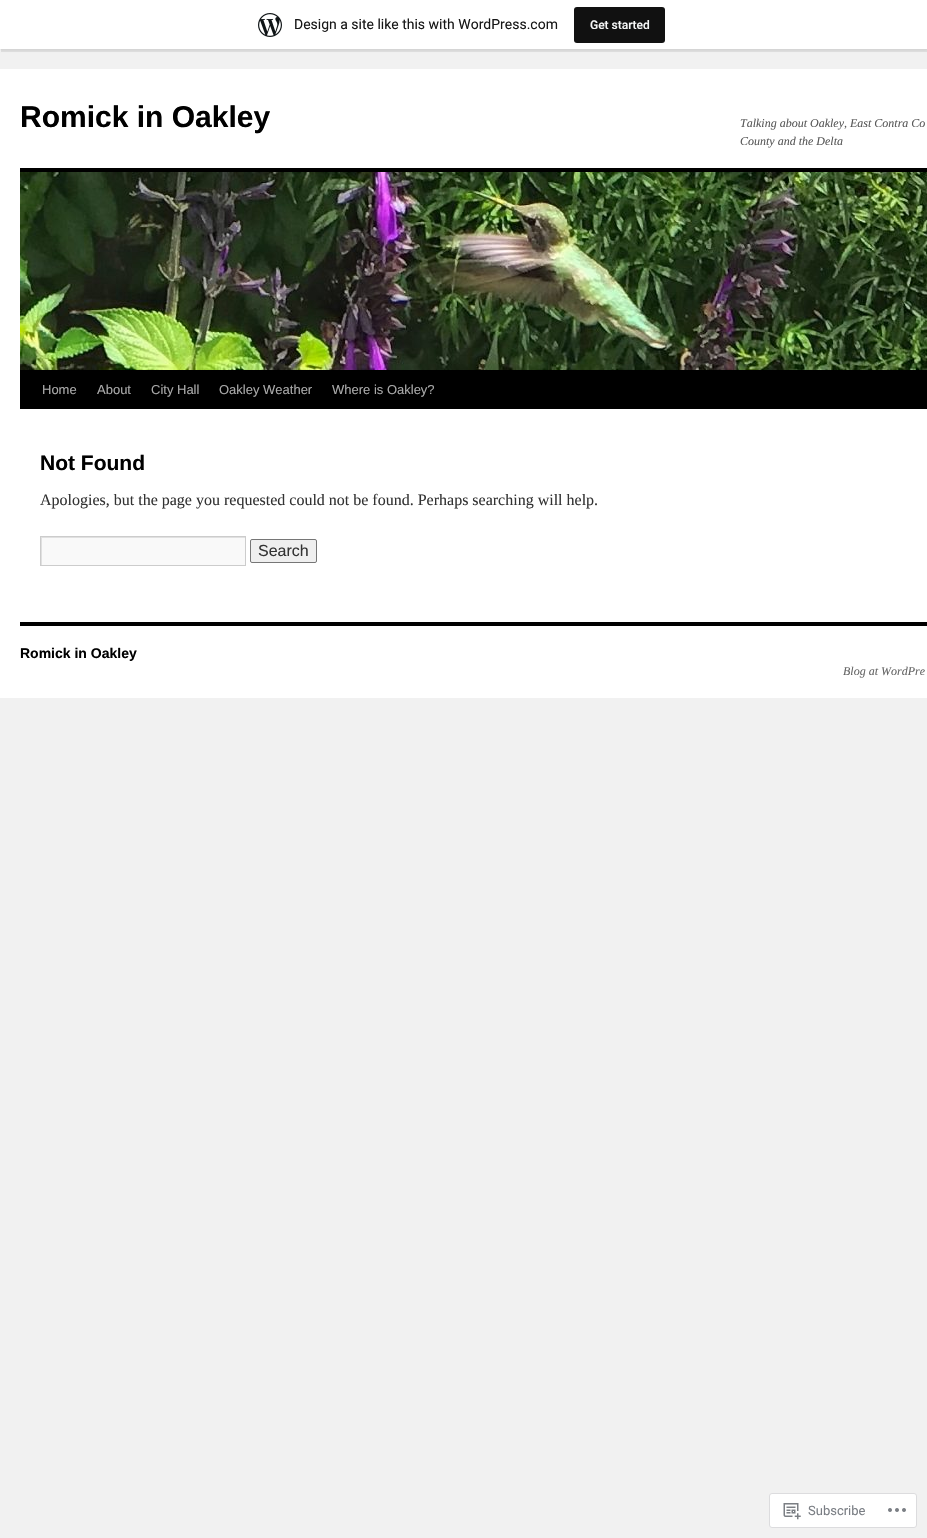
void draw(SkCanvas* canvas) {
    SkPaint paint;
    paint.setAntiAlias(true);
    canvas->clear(0xFFF1F1F1);
    paint.setColor(0x0D000000);
    paint.setMaskFilter(SkMaskFilter::MakeBlur(kNormal_SkBlurStyle, 1));
    canvas->drawRect(SkRect::MakeXYWH(0, 1, 927, 49), paint);
    paint.setMaskFilter(nullptr);
    paint.setColor(0x14000000);
    canvas->drawPath(SkPathBuilder().moveTo(1, 49).lineTo(1, 52).lineTo(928, 52).lineTo(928, 3).lineTo(927, 3).lineTo(927, 49).close().detach(), paint);
    paint.setColor(0xFFFFFFFF);
    canvas->drawRect(SkRect::MakeXYWH(0, 0, 927, 49), paint);
    canvas->drawImageRect(SkImages::DeferredFromEncodedData(SkData::MakeFromFileName("img1.png")), SkRect::MakeXYWH(258, 13, 24, 24), SkSamplingOptions());
    SkFont font1(fontMgr->matchFamilyStyle("Roboto", SkFontStyle::Normal()), 14);
    font1.setSubpixel(true);
    paint.setColor(0xFF171717);
    canvas->drawString("Design a site like this with WordPress.com", 294, 29, font1, paint);
    paint.setColor(0xFF111111);
    canvas->drawRoundRect(SkRect::MakeXYWH(574, 7, 91, 36), 3, 3, paint);
    SkFont font2(fontMgr->matchFamilyStyle("Roboto", SkFontStyle(500, SkFontStyle::kNormal_Width, SkFontStyle::kUpright_Slant)), 12);
    font2.setSubpixel(true);
    paint.setColor(0xFFF6F7F7);
    canvas->drawString("Get started", 590, 29, font2, paint);
    paint.setColor(0xFFFFFFFF);
    canvas->drawRect(SkRect::MakeXYWH(0, 69, 927, 629), paint);
    SkFont font3(fontMgr->matchFamilyStyle("Liberation Sans", SkFontStyle::Bold()), 30);
    font3.setSubpixel(true);
    paint.setColor(0xFF000000);
    canvas->drawString("Romick in Oakley", 20, 127, font3, paint);
    SkFont font4(fontMgr->matchFamilyStyle("Liberation Serif", SkFontStyle::Italic()), 12);
    font4.setSubpixel(true);
    paint.setColor(0xFF595959);
    canvas->drawString("Talking about Oakley, East Contra Co", 740, 127, font4, paint);
    canvas->drawString("County and the Delta", 740, 145, font4, paint);
    paint.setColor(0xFF000000);
    canvas->drawRect(SkRect::MakeXYWH(20, 168, 907, 4), paint);
    canvas->drawRect(SkRect::MakeXYWH(20, 370, 907, 39), paint);
    canvas->drawImageRect(SkImages::DeferredFromEncodedData(SkData::MakeFromFileName("img2.png")), SkRect::MakeXYWH(20, 172, 907, 198), SkSamplingOptions());
    SkFont font5(fontMgr->matchFamilyStyle("Liberation Sans", SkFontStyle::Normal()), 13);
    font5.setSubpixel(true);
    paint.setColor(0xFFAAAAAA);
    canvas->drawString("Home", 42, 394, font5, paint);
    canvas->drawString("About", 97, 394, font5, paint);
    canvas->drawString("City Hall", 151, 394, font5, paint);
    canvas->drawString("Oakley Weather", 219, 394, font5, paint);
    canvas->drawString("Where is Oakley?", 332, 394, font5, paint);
    SkFont font6(fontMgr->matchFamilyStyle("Liberation Sans", SkFontStyle::Bold()), 21);
    font6.setSubpixel(true);
    paint.setColor(0xFF000000);
    canvas->drawString("Not Found", 40, 470, font6, paint);
    SkFont font7(fontMgr->matchFamilyStyle("Liberation Serif", SkFontStyle::Normal()), 16);
    font7.setSubpixel(true);
    paint.setColor(0xFF333333);
    canvas->drawString("Apologies, but the page you requested could not be found. Perhaps searching will help.", 40, 505, font7, paint);
    paint.setColor(0xFFF9F9F9);
    canvas->drawRect(SkRect::MakeXYWH(42, 538, 203, 27), paint);
    canvas->save();
    canvas->clipRect(SkRect::MakeXYWH(41, 537, 204, 28));
    paint.setColor(0xFFE0E0E0);
    canvas->drawPath(SkPathBuilder(SkPathFillType::kEvenOdd).moveTo(-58, 438).lineTo(344, 438).lineTo(344, 664).lineTo(-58, 664).close().moveTo(42, 538).lineTo(246, 538).lineTo(246, 566).lineTo(42, 566).close().detach(), paint);
    canvas->restore();
    paint.setStyle(SkPaint::kStroke_Style);
    paint.setStrokeWidth(1);
    paint.setColor(0xFFCCCCCC);
    canvas->drawRect(SkRect::MakeXYWH(40.5f, 536.5f, 205, 29), paint);
    paint.setStyle(SkPaint::kFill_Style);
    paint.setColor(0xFFEFEFEF);
    canvas->drawRoundRect(SkRect::MakeXYWH(250.5f, 539.5f, 66, 23), 1.5f, 1.5f, paint);
    paint.setStyle(SkPaint::kStroke_Style);
    paint.setColor(0xFF767676);
    canvas->drawRoundRect(SkRect::MakeXYWH(250.5f, 539.5f, 66, 23), 1.5f, 1.5f, paint);
    SkFont font8(fontMgr->matchFamilyStyle("Liberation Sans", SkFontStyle::Normal()), 16);
    font8.setSubpixel(true);
    paint.setStyle(SkPaint::kFill_Style);
    paint.setColor(0xFF333333);
    canvas->drawString("Search", 258, 556, font8, paint);
    paint.setColor(0xFF000000);
    canvas->drawRect(SkRect::MakeXYWH(20, 622, 907, 4), paint);
    SkFont font9(fontMgr->matchFamilyStyle("Liberation Sans", SkFontStyle::Bold()), 14);
    font9.setSubpixel(true);
    canvas->drawString("Romick in Oakley", 20, 658, font9, paint);
    paint.setColor(0xFF666666);
    canvas->drawString("Blog at WordPre", 843, 675, font4, paint);
    paint.setColor(0xFFFFFFFF);
    canvas->drawRoundRect(SkRect::MakeXYWH(769.5f, 1493.5f, 147, 34), 2.5f, 2.5f, paint);
    paint.setStyle(SkPaint::kStroke_Style);
    paint.setColor(0xFFDCDCDE);
    canvas->drawRoundRect(SkRect::MakeXYWH(769.5f, 1493.5f, 147, 34), 2.5f, 2.5f, paint);
    canvas->drawImageRect(SkImages::DeferredFromEncodedData(SkData::MakeFromFileName("img3.png")), SkRect::MakeXYWH(783, 1503, 18, 17), SkSamplingOptions());
    SkFont font10(fontMgr->matchFamilyStyle("Roboto", SkFontStyle::Normal()), 13);
    font10.setSubpixel(true);
    paint.setStyle(SkPaint::kFill_Style);
    paint.setColor(0xFF7A7E84);
    canvas->drawString("Subscribe", 808, 1515, font10, paint);
    canvas->drawImageRect(SkImages::DeferredFromEncodedData(SkData::MakeFromFileName("img4.png")), SkRect::MakeXYWH(888, 1508, 18, 4), SkSamplingOptions());
}
